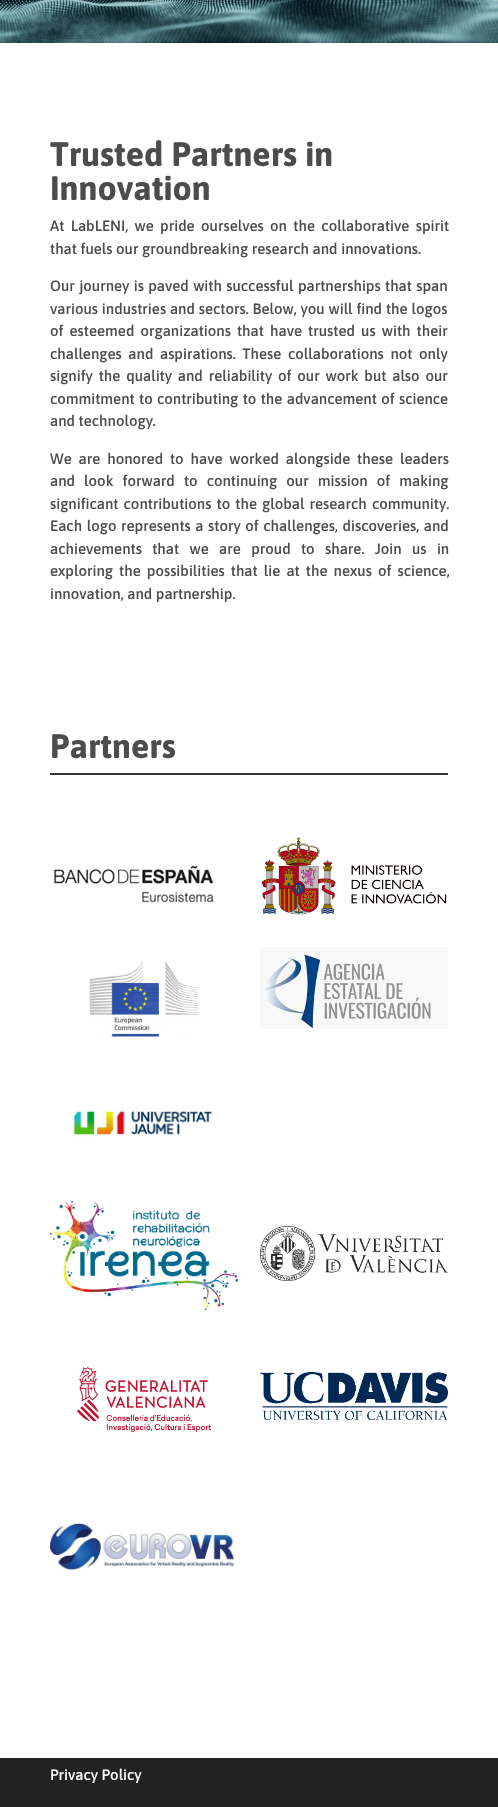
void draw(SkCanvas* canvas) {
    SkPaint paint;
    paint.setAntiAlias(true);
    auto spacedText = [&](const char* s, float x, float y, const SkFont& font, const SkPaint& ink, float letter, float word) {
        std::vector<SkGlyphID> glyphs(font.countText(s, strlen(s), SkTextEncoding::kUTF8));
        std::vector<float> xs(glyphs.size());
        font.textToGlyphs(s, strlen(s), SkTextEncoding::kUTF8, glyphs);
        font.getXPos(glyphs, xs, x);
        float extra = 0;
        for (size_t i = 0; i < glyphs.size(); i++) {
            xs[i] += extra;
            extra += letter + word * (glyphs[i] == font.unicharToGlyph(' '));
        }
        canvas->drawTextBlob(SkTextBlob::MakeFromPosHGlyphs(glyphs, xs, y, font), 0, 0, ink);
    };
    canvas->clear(0xFFFFFFFF);
    canvas->drawImageRect(SkImages::DeferredFromEncodedData(SkData::MakeFromFileName("img1.png")), SkRect::MakeXYWH(0, 0, 498, 43), SkSamplingOptions());
    SkFont font1(fontMgr->matchFamilyStyle("Asap", SkFontStyle::Bold()), 34);
    font1.setSubpixel(true);
    paint.setColor(0xFF4C4C4C);
    canvas->drawString("Trusted Partners in", 50, 166, font1, paint);
    canvas->drawString("Innovation", 50, 200, font1, paint);
    SkFont font2(fontMgr->matchFamilyStyle("Asap", SkFontStyle(500, SkFontStyle::kNormal_Width, SkFontStyle::kUpright_Slant)), 15);
    font2.setSubpixel(true);
    spacedText("At LabLENI, we pride ourselves on the collaborative spirit", 50, 231, font2, paint, 0, 2.75f);
    canvas->drawString("that fuels our groundbreaking research and innovations.", 50, 254, font2, paint);
    spacedText("Our journey is paved with successful partnerships that span", 50, 291, font2, paint, 0, 0.75f);
    spacedText("various industries and sectors. Below, you will find the logos", 50, 314, font2, paint, 0, 0.25f);
    spacedText("of esteemed organizations that have trusted us with their", 50, 336, font2, paint, 0, 2.5f);
    spacedText("challenges and aspirations. These collaborations not only", 50, 359, font2, paint, 0, 3);
    spacedText("signify the quality and reliability of our work but also our", 50, 381, font2, paint, 0, 2.25f);
    spacedText("commitment to contributing to the advancement of science", 50, 404, font2, paint, 0, 0.75f);
    canvas->drawString("and technology.", 50, 426, font2, paint);
    spacedText("We are honored to have worked alongside these leaders", 50, 464, font2, paint, 0, 3.25f);
    spacedText("and look forward to continuing our mission of making", 50, 486, font2, paint, 0, 5.5f);
    spacedText("significant contributions to the global research community.", 50, 509, font2, paint, 0, 1.5f);
    spacedText("Each logo represents a story of challenges, discoveries, and", 50, 531, font2, paint, 0, 1);
    spacedText("achievements that we are proud to share. Join us in", 50, 554, font2, paint, 0, 6.75f);
    spacedText("exploring the possibilities that lie at the nexus of science,", 50, 576, font2, paint, 0, 2.5f);
    canvas->drawString("innovation, and partnership.", 50, 599, font2, paint);
    paint.setColor(0xFF333333);
    canvas->drawRect(SkRect::MakeXYWH(50, 773, 398, 2), paint);
    paint.setColor(0xFF4C4C4C);
    canvas->drawString("Partners", 50, 758, font1, paint);
    canvas->drawImageRect(SkImages::DeferredFromEncodedData(SkData::MakeFromFileName("img2.png")), SkRect::MakeXYWH(53, 865, 161, 38), SkSamplingOptions());
    canvas->drawImageRect(SkImages::DeferredFromEncodedData(SkData::MakeFromFileName("img3.png")), SkRect::MakeXYWH(261, 837, 186, 78), SkSamplingOptions());
    canvas->drawImageRect(SkImages::DeferredFromEncodedData(SkData::MakeFromFileName("img4.png")), SkRect::MakeXYWH(89, 961, 110, 76), SkSamplingOptions());
    canvas->drawImageRect(SkImages::DeferredFromEncodedData(SkData::MakeFromFileName("img5.png")), SkRect::MakeXYWH(260, 947, 188, 82), SkSamplingOptions());
    canvas->drawImageRect(SkImages::DeferredFromEncodedData(SkData::MakeFromFileName("img6.png")), SkRect::MakeXYWH(73, 1110, 140, 27), SkSamplingOptions());
    canvas->drawImageRect(SkImages::DeferredFromEncodedData(SkData::MakeFromFileName("img7.png")), SkRect::MakeXYWH(50, 1201, 188, 109), SkSamplingOptions());
    canvas->drawImageRect(SkImages::DeferredFromEncodedData(SkData::MakeFromFileName("img8.png")), SkRect::MakeXYWH(260, 1226, 188, 55), SkSamplingOptions());
    canvas->drawImageRect(SkImages::DeferredFromEncodedData(SkData::MakeFromFileName("img9.png")), SkRect::MakeXYWH(76, 1366, 136, 67), SkSamplingOptions());
    canvas->drawImageRect(SkImages::DeferredFromEncodedData(SkData::MakeFromFileName("img10.png")), SkRect::MakeXYWH(260, 1372, 188, 48), SkSamplingOptions());
    canvas->drawImageRect(SkImages::DeferredFromEncodedData(SkData::MakeFromFileName("img11.png")), SkRect::MakeXYWH(50, 1521, 185, 50), SkSamplingOptions());
    paint.setColor(0xFF222222);
    canvas->drawRect(SkRect::MakeXYWH(0, 1758, 498, 49), paint);
    paint.setColor(0xFFFFFFFF);
    canvas->drawString("Privacy Policy", 50, 1780, font2, paint);
}
